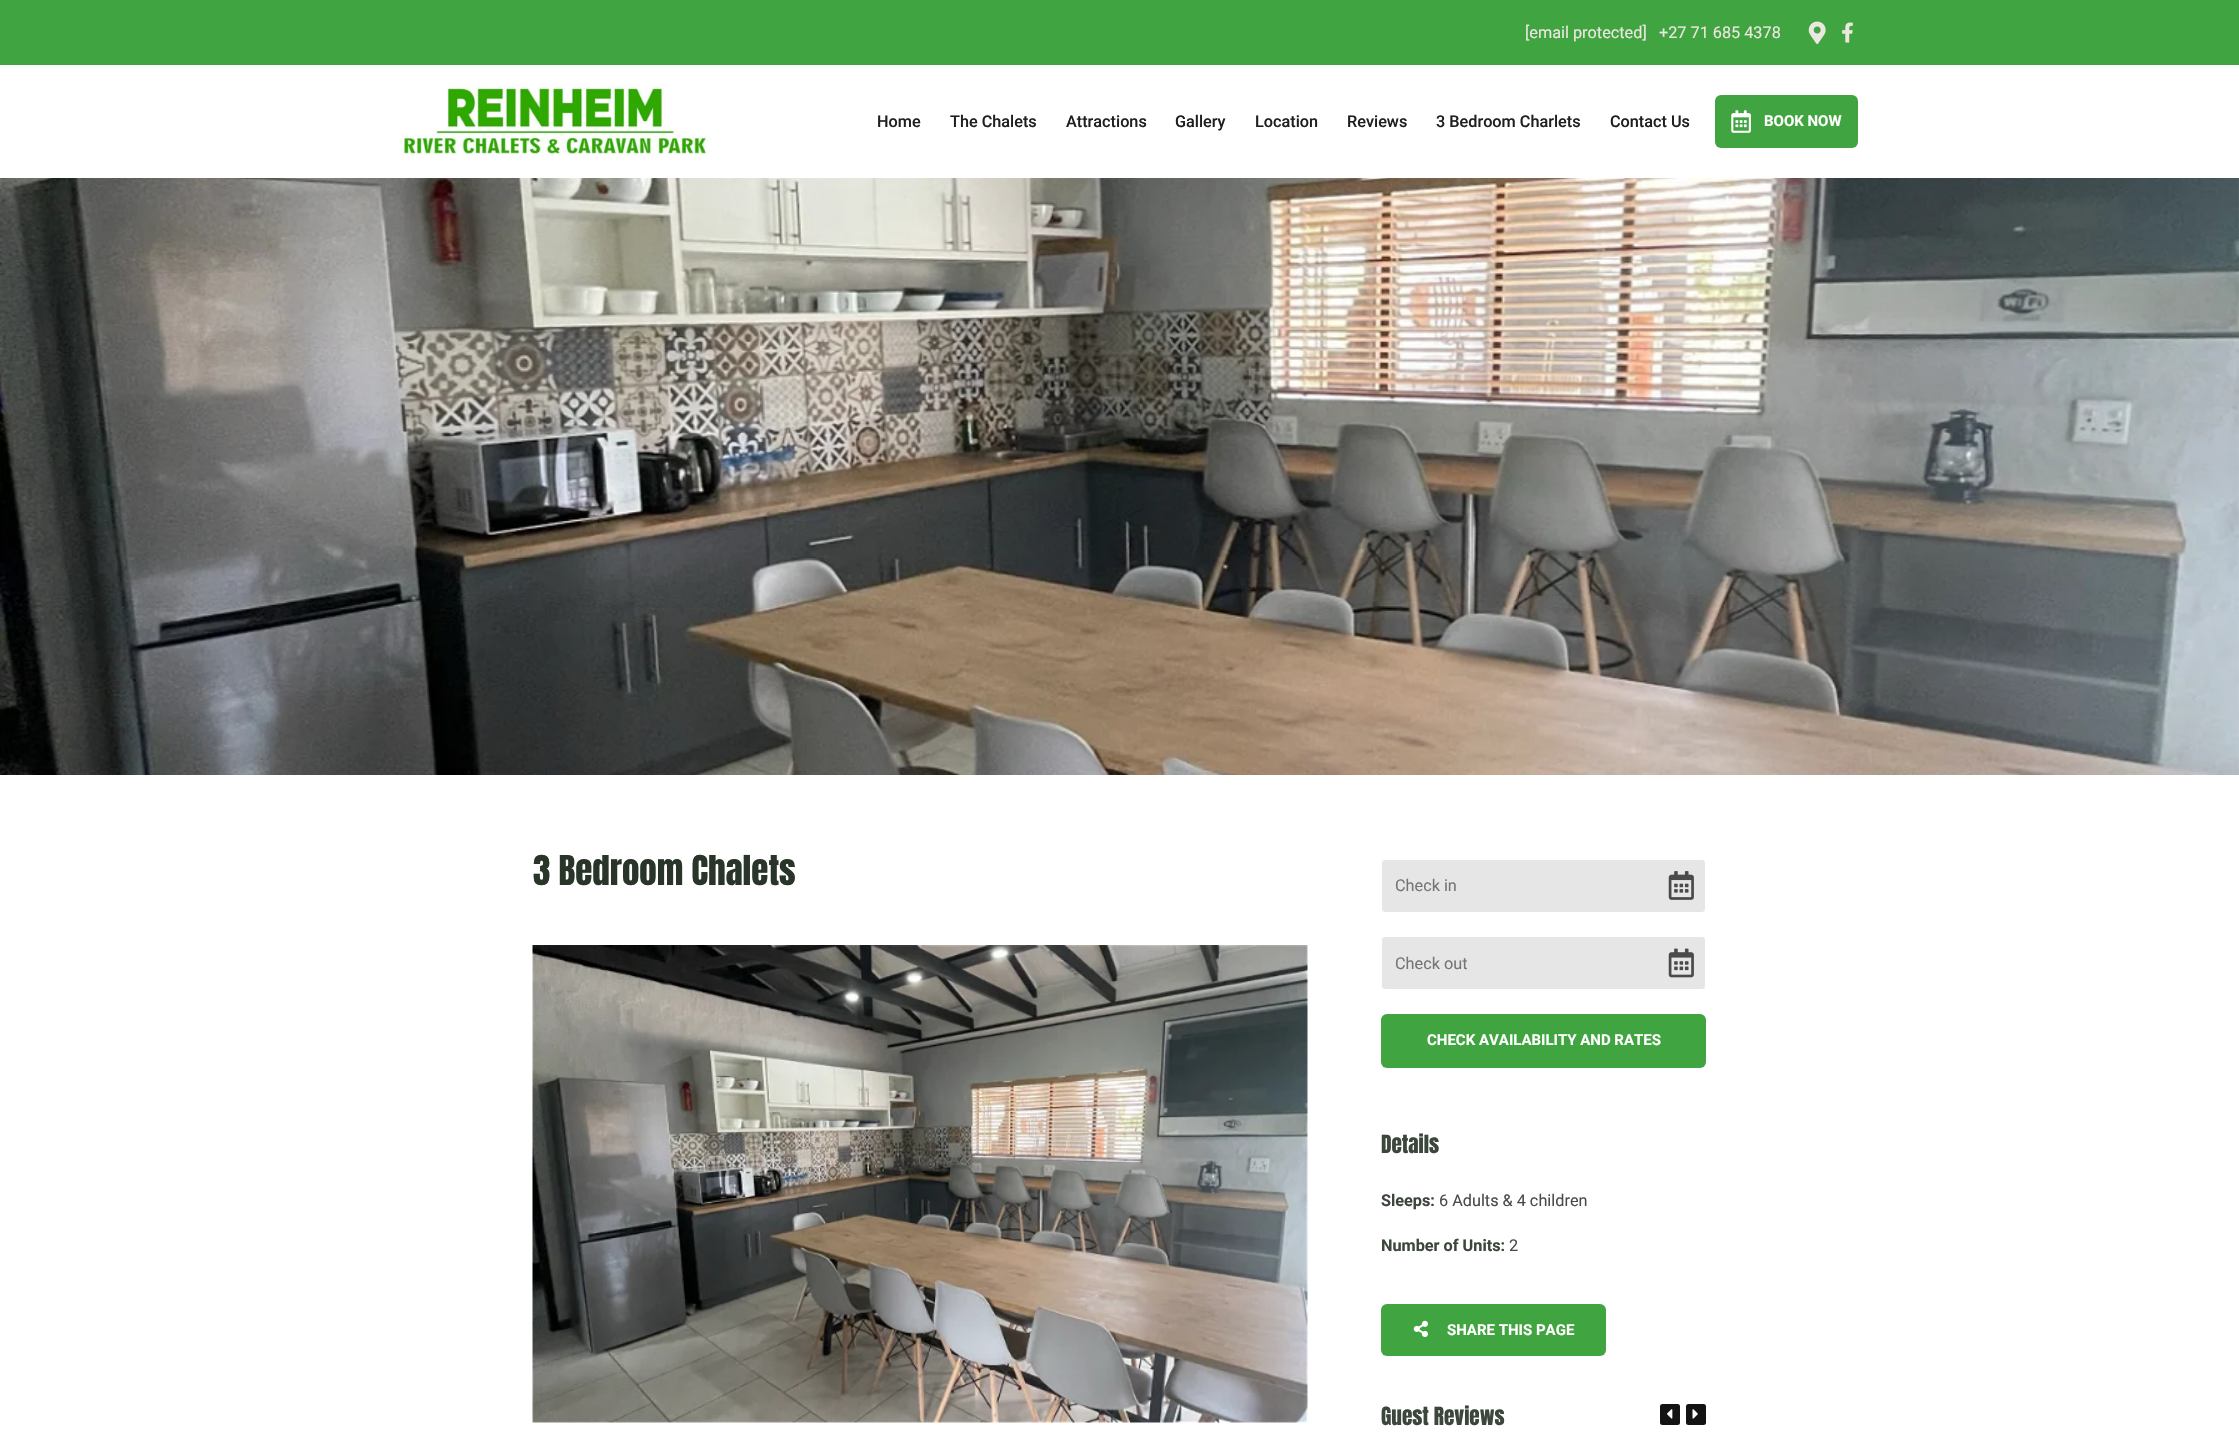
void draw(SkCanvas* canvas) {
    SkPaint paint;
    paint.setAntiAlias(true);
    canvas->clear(0xFFFFFFFF);
    paint.setColor(0xFF40A540);
    canvas->drawRect(SkRect::MakeXYWH(0, 0, 2239, 65), paint);
    SkFont font1(fontMgr->matchFamilyStyle("Roboto", SkFontStyle::Normal()), 16.25f);
    font1.setSubpixel(true);
    paint.setColor(0xFFECE7E0);
    canvas->drawString("[email protected]", 1525, 38, font1, paint);
    canvas->drawString("+27 71 685 4378", 1659, 38, font1, paint);
    canvas->drawImageRect(SkImages::DeferredFromEncodedData(SkData::MakeFromFileName("img1.png")), SkRect::MakeXYWH(1808, 21, 18, 23), SkSamplingOptions());
    canvas->drawImageRect(SkImages::DeferredFromEncodedData(SkData::MakeFromFileName("img2.png")), SkRect::MakeXYWH(1842, 22, 11, 21), SkSamplingOptions());
    canvas->drawImageRect(SkImages::DeferredFromEncodedData(SkData::MakeFromFileName("img3.png")), SkRect::MakeXYWH(401, 83, 309, 72), SkSamplingOptions());
    SkFont font2(fontMgr->matchFamilyStyle("Roboto", SkFontStyle(500, SkFontStyle::kNormal_Width, SkFontStyle::kUpright_Slant)), 16.25f);
    font2.setSubpixel(true);
    paint.setColor(0xFF1F1F1F);
    canvas->drawString("Home", 877, 127, font2, paint);
    canvas->drawString("The Chalets", 950, 127, font2, paint);
    canvas->drawString("Attractions", 1066, 127, font2, paint);
    canvas->drawString("Gallery", 1175, 127, font2, paint);
    canvas->drawString("Location", 1255, 127, font2, paint);
    canvas->drawString("Reviews", 1347, 127, font2, paint);
    canvas->drawString("3 Bedroom Charlets", 1436, 127, font2, paint);
    canvas->drawString("Contact Us", 1610, 127, font2, paint);
    paint.setColor(0xFF40A540);
    canvas->drawRoundRect(SkRect::MakeXYWH(1715, 95, 143, 53), 6, 6, paint);
    canvas->drawImageRect(SkImages::DeferredFromEncodedData(SkData::MakeFromFileName("img4.png")), SkRect::MakeXYWH(1731, 110, 20, 23), SkSamplingOptions());
    SkFont font3(fontMgr->matchFamilyStyle("Roboto", SkFontStyle::Bold()), 15);
    font3.setSubpixel(true);
    paint.setColor(0xFFFFFFFF);
    canvas->drawString("BOOK NOW", 1764, 126, font3, paint);
    canvas->drawImageRect(SkImages::DeferredFromEncodedData(SkData::MakeFromFileName("img5.png")), SkRect::MakeXYWH(0, 178, 2239, 597), SkSamplingOptions());
    SkFont font4(fontMgr->matchFamilyStyle("Anton", SkFontStyle::Normal()), 35);
    font4.setSubpixel(true);
    paint.setColor(0xFF293529);
    canvas->drawString("3 Bedroom Chalets", 533, 885, font4, paint);
    canvas->drawImageRect(SkImages::DeferredFromEncodedData(SkData::MakeFromFileName("img6.png")), SkRect::MakeXYWH(532, 945, 776, 478), SkSamplingOptions());
    paint.setColor(0xFFE6E6E6);
    canvas->drawRoundRect(SkRect::MakeXYWH(1381.5f, 859.5f, 324, 53), 3.5f, 3.5f, paint);
    paint.setStyle(SkPaint::kStroke_Style);
    paint.setStrokeWidth(1);
    paint.setColor(0xFFFFFFFF);
    canvas->drawRoundRect(SkRect::MakeXYWH(1381.5f, 859.5f, 324, 53), 3.5f, 3.5f, paint);
    paint.setStyle(SkPaint::kFill_Style);
    paint.setColor(0xFF757575);
    canvas->drawString("Check in", 1395, 891, font1, paint);
    canvas->drawImageRect(SkImages::DeferredFromEncodedData(SkData::MakeFromFileName("img7.png")), SkRect::MakeXYWH(1668, 871, 26, 29), SkSamplingOptions());
    paint.setColor(0xFFE6E6E6);
    canvas->drawRoundRect(SkRect::MakeXYWH(1381.5f, 936.5f, 324, 53), 3.5f, 3.5f, paint);
    paint.setStyle(SkPaint::kStroke_Style);
    paint.setColor(0xFFFFFFFF);
    canvas->drawRoundRect(SkRect::MakeXYWH(1381.5f, 936.5f, 324, 53), 3.5f, 3.5f, paint);
    paint.setStyle(SkPaint::kFill_Style);
    paint.setColor(0xFF757575);
    canvas->drawString("Check out", 1395, 969, font1, paint);
    canvas->drawImageRect(SkImages::DeferredFromEncodedData(SkData::MakeFromFileName("img8.png")), SkRect::MakeXYWH(1668, 948, 26, 30), SkSamplingOptions());
    paint.setColor(0xFF40A540);
    canvas->drawRoundRect(SkRect::MakeXYWH(1381, 1014, 325, 54), 6, 6, paint);
    paint.setColor(0xFFFFFFFF);
    canvas->drawString("CHECK AVAILABILITY AND RATES", 1427, 1045, font3, paint);
    SkFont font5(fontMgr->matchFamilyStyle("Anton", SkFontStyle::Normal()), 21.25f);
    font5.setSubpixel(true);
    paint.setColor(0xFF3C463C);
    canvas->drawString("Details", 1381, 1153, font5, paint);
    SkFont font6(fontMgr->matchFamilyStyle("Roboto", SkFontStyle::Bold()), 16.25f);
    font6.setSubpixel(true);
    canvas->drawString("Sleeps:", 1381, 1206, font6, paint);
    paint.setColor(0xFF4A4A4A);
    canvas->drawString("6 Adults & 4 children", 1439, 1206, font1, paint);
    paint.setColor(0xFF3C463C);
    canvas->drawString("Number of Units:", 1381, 1251, font6, paint);
    paint.setColor(0xFF4A4A4A);
    canvas->drawString("2", 1509, 1251, font1, paint);
    paint.setColor(0xFF40A540);
    canvas->drawRoundRect(SkRect::MakeXYWH(1381, 1304, 225, 52), 6, 6, paint);
    canvas->drawImageRect(SkImages::DeferredFromEncodedData(SkData::MakeFromFileName("img9.png")), SkRect::MakeXYWH(1413, 1320, 15, 17), SkSamplingOptions());
    paint.setColor(0xFFFFFFFF);
    canvas->drawString("SHARE THIS PAGE", 1447, 1335, font3, paint);
    paint.setColor(0xFF3C463C);
    canvas->drawString("Guest Reviews", 1381, 1425, font5, paint);
    paint.setColor(0xFF131313);
    canvas->drawRoundRect(SkRect::MakeXYWH(1660, 1404, 20, 21), 2.5f, 2.5f, paint);
    canvas->drawImageRect(SkImages::DeferredFromEncodedData(SkData::MakeFromFileName("img10.png")), SkRect::MakeXYWH(1667, 1409, 6, 10), SkSamplingOptions());
    canvas->drawRoundRect(SkRect::MakeXYWH(1686, 1404, 20, 21), 2.5f, 2.5f, paint);
    canvas->drawImageRect(SkImages::DeferredFromEncodedData(SkData::MakeFromFileName("img11.png")), SkRect::MakeXYWH(1692, 1409, 6, 10), SkSamplingOptions());
}
